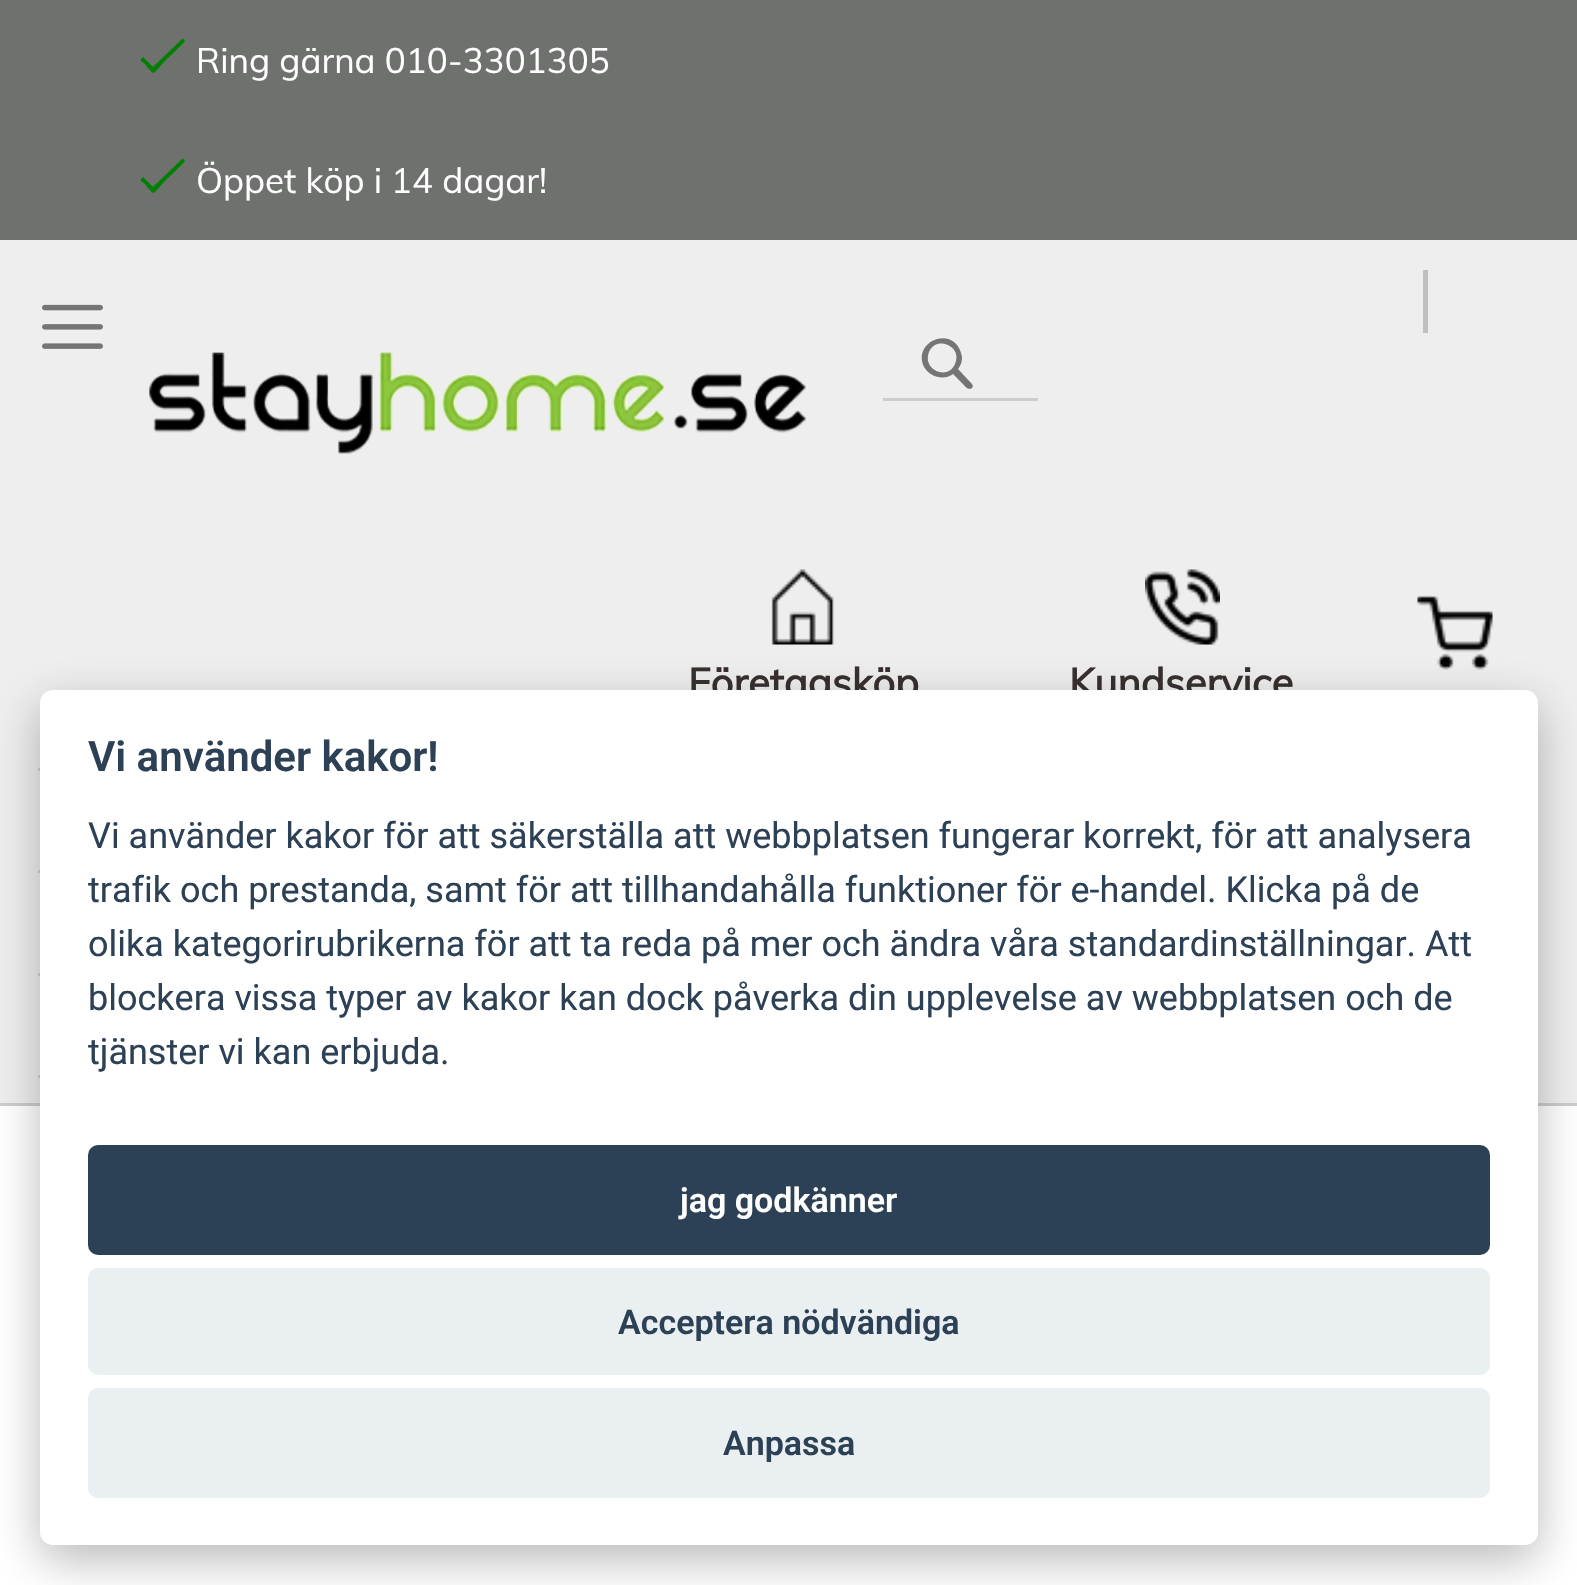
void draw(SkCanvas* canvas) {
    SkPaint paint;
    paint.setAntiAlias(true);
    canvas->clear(0xFFFFFFFF);
    paint.setColor(0xFFEEEEEE);
    canvas->drawRect(SkRect::MakeXYWH(0, 240, 1577, 863), paint);
    paint.setColor(0xFFCCCCCC);
    canvas->drawRect(SkRect::MakeXYWH(0, 1103, 1577, 3), paint);
    paint.setColor(0xFF6E716E);
    canvas->drawRect(SkRect::MakeXYWH(0, 0, 1577, 240), paint);
    paint.setColor(0xFF008000);
    canvas->drawPath(SkPathBuilder().moveTo(182, 39).lineTo(153, 67).lineTo(143, 57).lineTo(141, 59).cubicTo(139, 60, 144, 63, 145, 64).cubicTo(146, 66, 152, 73, 154, 73).lineTo(164, 62).cubicTo(167, 59, 185, 42, 185, 41).cubicTo(184, 40, 183, 38, 182, 39).close().detach(), paint);
    SkFont font1(fontMgr->matchFamilyStyle("Mulish", SkFontStyle::Normal()), 35);
    font1.setSubpixel(true);
    paint.setColor(0xFFFFFFFF);
    canvas->drawString("Ring gärna 010-3301305", 196, 73, font1, paint);
    paint.setColor(0xFF008000);
    canvas->drawPath(SkPathBuilder().moveTo(182, 159).lineTo(153, 187).lineTo(143, 177).lineTo(141, 179).cubicTo(139, 180, 144, 183, 145, 184).cubicTo(146, 186, 152, 193, 154, 193).lineTo(164, 182).cubicTo(167, 179, 185, 162, 185, 161).cubicTo(184, 160, 183, 158, 182, 159).close().detach(), paint);
    paint.setColor(0xFFFFFFFF);
    canvas->drawString("Öppet köp i 14 dagar!", 196, 193, font1, paint);
    canvas->drawImageRect(SkImages::DeferredFromEncodedData(SkData::MakeFromFileName("img1.png")), SkRect::MakeXYWH(42, 304, 61, 45), SkSamplingOptions());
    paint.setColor(0xFFBFBFBF);
    canvas->drawRect(SkRect::MakeXYWH(1423, 270, 5, 63), paint);
    paint.setColor(0xFF757575);
    canvas->drawPath(SkPathBuilder().moveTo(972, 384).lineTo(958, 369).cubicTo(962, 364, 963, 358, 961, 353).cubicTo(953, 325, 912, 341, 924, 367).cubicTo(930, 377, 944, 381, 953, 374).lineTo(962, 383).cubicTo(964, 385, 968, 391, 972, 388).cubicTo(973, 387, 973, 385, 972, 384).close().moveTo(955, 364).cubicTo(948, 381, 922, 370, 929, 352).cubicTo(936, 335, 963, 346, 955, 364).close().detach(), paint);
    paint.setColor(0xFFCCCCCC);
    canvas->drawRect(SkRect::MakeXYWH(883, 398, 155, 3), paint);
    canvas->drawImageRect(SkImages::DeferredFromEncodedData(SkData::MakeFromFileName("img2.png")), SkRect::MakeXYWH(149, 352, 657, 102), SkSamplingOptions());
    canvas->drawImageRect(SkImages::DeferredFromEncodedData(SkData::MakeFromFileName("img3.png")), SkRect::MakeXYWH(1417, 595, 76, 75), SkSamplingOptions());
    canvas->drawImageRect(SkImages::DeferredFromEncodedData(SkData::MakeFromFileName("img4.png")), SkRect::MakeXYWH(771, 569, 64, 76), SkSamplingOptions());
    SkFont font2(fontMgr->matchFamilyStyle("Mulish", SkFontStyle::Bold()), 40);
    font2.setSubpixel(true);
    paint.setColor(0xFF362F2D);
    canvas->drawString("Företagsköp", 688, 697, font2, paint);
    canvas->drawImageRect(SkImages::DeferredFromEncodedData(SkData::MakeFromFileName("img5.png")), SkRect::MakeXYWH(1145, 569, 75, 76), SkSamplingOptions());
    canvas->drawString("Kundservice", 1069, 697, font2, paint);
    paint.setColor(0xFFD1D1D1);
    canvas->drawRect(SkRect::MakeXYWH(38, 768, 2, 3), paint);
    canvas->drawRect(SkRect::MakeXYWH(38, 870, 2, 3), paint);
    canvas->drawRect(SkRect::MakeXYWH(38, 973, 2, 3), paint);
    canvas->drawRect(SkRect::MakeXYWH(38, 1075, 2, 3), paint);
    paint.setColor(0x47020203);
    paint.setMaskFilter(SkMaskFilter::MakeBlur(kNormal_SkBlurStyle, 23.5f));
    canvas->drawRoundRect(SkRect::MakeXYWH(40, 705, 1498, 855), 13, 13, paint);
    paint.setMaskFilter(nullptr);
    paint.setColor(0xFFFFFFFF);
    canvas->drawRoundRect(SkRect::MakeXYWH(40, 690, 1498, 855), 13, 13, paint);
    SkFont font3(fontMgr->matchFamilyStyle("Roboto", SkFontStyle(600, SkFontStyle::kNormal_Width, SkFontStyle::kUpright_Slant)), 42);
    font3.setSubpixel(true);
    paint.setColor(0xFF2D4156);
    canvas->drawString("Vi använder kakor!", 88, 771, font3, paint);
    SkFont font4(fontMgr->matchFamilyStyle("Roboto", SkFontStyle::Normal()), 36);
    font4.setSubpixel(true);
    canvas->drawString("Vi använder kakor för att säkerställa att webbplatsen fungerar korrekt, för att analysera", 88, 848, font4, paint);
    canvas->drawString("trafik och prestanda, samt för att tillhandahålla funktioner för e-handel. Klicka på de", 88, 902, font4, paint);
    canvas->drawString("olika kategorirubrikerna för att ta reda på mer och ändra våra standardinställningar. Att", 88, 956, font4, paint);
    canvas->drawString("blockera vissa typer av kakor kan dock påverka din upplevelse av webbplatsen och de", 88, 1010, font4, paint);
    canvas->drawString("tjänster vi kan erbjuda.", 88, 1064, font4, paint);
    canvas->drawRoundRect(SkRect::MakeXYWH(88, 1145, 1402, 110), 10, 10, paint);
    SkFont font5(fontMgr->matchFamilyStyle("Roboto", SkFontStyle(600, SkFontStyle::kNormal_Width, SkFontStyle::kUpright_Slant)), 34);
    font5.setSubpixel(true);
    paint.setColor(0xFFFFFFFF);
    canvas->drawString("jag godkänner", 680, 1212, font5, paint);
    paint.setColor(0xFFEAEFF2);
    canvas->drawRoundRect(SkRect::MakeXYWH(88, 1268, 1402, 107), 10, 10, paint);
    paint.setColor(0xFF2D4156);
    canvas->drawString("Acceptera nödvändiga", 618, 1334, font5, paint);
    paint.setColor(0xFFEAEFF2);
    canvas->drawRoundRect(SkRect::MakeXYWH(88, 1388, 1402, 110), 10, 10, paint);
    paint.setColor(0xFF2D4156);
    canvas->drawString("Anpassa", 723, 1455, font5, paint);
}
